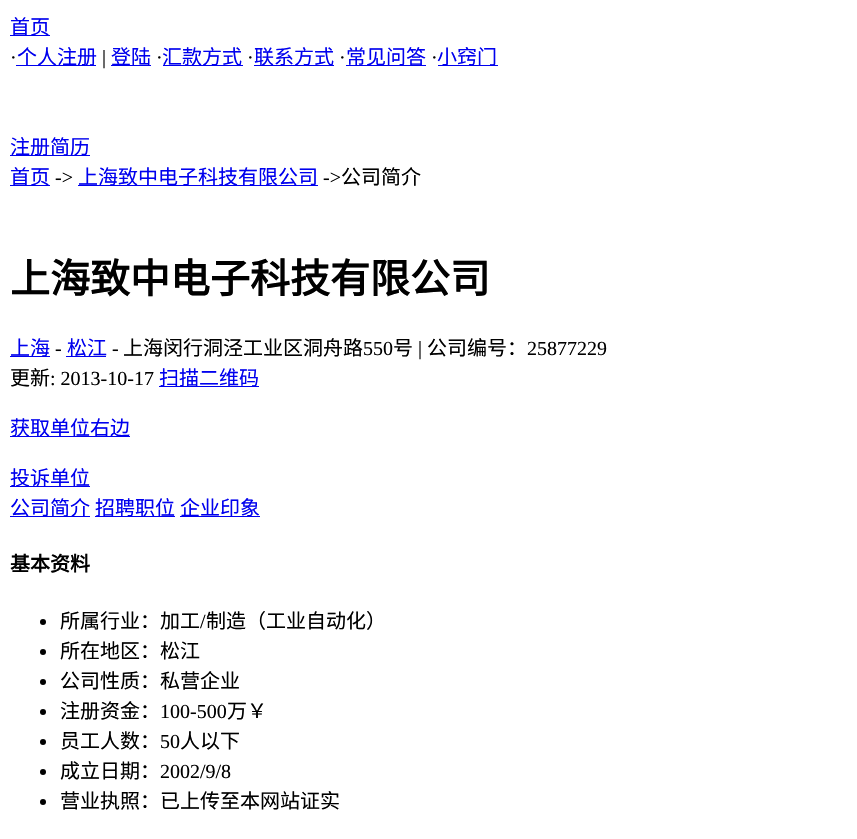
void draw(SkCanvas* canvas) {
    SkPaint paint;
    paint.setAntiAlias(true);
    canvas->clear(0xFFFFFFFF);
    paint.setColor(0xFF0000EE);
    canvas->drawRect(SkRect::MakeXYWH(10, 35, 40, 1), paint);
    SkFont font1(fontMgr->matchFamilyStyle("Noto Sans CJK SC", SkFontStyle::Normal()), 20);
    font1.setSubpixel(true);
    canvas->drawString("首页", 10, 34, font1, paint);
    SkFont font2(fontMgr->matchFamilyStyle("Liberation Serif", SkFontStyle::Normal()), 20);
    font2.setSubpixel(true);
    paint.setColor(0xFF000000);
    canvas->drawString("·", 10, 64, font2, paint);
    paint.setColor(0xFF0000EE);
    canvas->drawRect(SkRect::MakeXYWH(16, 65, 80, 1), paint);
    canvas->drawString("个人注册", 17, 64, font1, paint);
    paint.setColor(0xFF000000);
    canvas->drawString("|", 102, 64, font2, paint);
    paint.setColor(0xFF0000EE);
    canvas->drawRect(SkRect::MakeXYWH(111, 65, 40, 1), paint);
    canvas->drawString("登陆", 111, 64, font1, paint);
    paint.setColor(0xFF000000);
    canvas->drawString("·", 156, 64, font2, paint);
    paint.setColor(0xFF0000EE);
    canvas->drawRect(SkRect::MakeXYWH(163, 65, 80, 1), paint);
    canvas->drawString("汇款方式", 162, 64, font1, paint);
    paint.setColor(0xFF000000);
    canvas->drawString("·", 247, 64, font2, paint);
    paint.setColor(0xFF0000EE);
    canvas->drawRect(SkRect::MakeXYWH(254, 65, 80, 1), paint);
    canvas->drawString("联系方式", 254, 64, font1, paint);
    paint.setColor(0xFF000000);
    canvas->drawString("·", 339, 64, font2, paint);
    paint.setColor(0xFF0000EE);
    canvas->drawRect(SkRect::MakeXYWH(346, 65, 80, 1), paint);
    canvas->drawString("常见问答", 346, 64, font1, paint);
    paint.setColor(0xFF000000);
    canvas->drawString("·", 431, 64, font2, paint);
    paint.setColor(0xFF0000EE);
    canvas->drawRect(SkRect::MakeXYWH(438, 65, 60, 1), paint);
    canvas->drawString("小窍门", 437, 64, font1, paint);
    canvas->drawRect(SkRect::MakeXYWH(10, 155, 80, 1), paint);
    canvas->drawString("注册简历", 10, 154, font1, paint);
    canvas->drawRect(SkRect::MakeXYWH(10, 185, 40, 1), paint);
    canvas->drawString("首页", 10, 184, font1, paint);
    paint.setColor(0xFF000000);
    canvas->drawString("->", 55, 184, font2, paint);
    paint.setColor(0xFF0000EE);
    canvas->drawRect(SkRect::MakeXYWH(78, 185, 240, 1), paint);
    canvas->drawString("上海致中电子科技有限公司", 78, 184, font1, paint);
    paint.setColor(0xFF000000);
    canvas->drawString("->", 323, 184, font2, paint);
    canvas->drawString("公司简介", 341, 184, font1, paint);
    SkFont font3(fontMgr->matchFamilyStyle("Noto Sans CJK SC", SkFontStyle::Bold()), 40);
    font3.setSubpixel(true);
    canvas->drawString("上海致中电子科技有限公司", 10, 293, font3, paint);
    paint.setColor(0xFF0000EE);
    canvas->drawRect(SkRect::MakeXYWH(10, 356, 40, 1), paint);
    canvas->drawString("上海", 10, 355, font1, paint);
    paint.setColor(0xFF000000);
    canvas->drawString("-", 55, 355, font2, paint);
    paint.setColor(0xFF0000EE);
    canvas->drawRect(SkRect::MakeXYWH(66, 356, 40, 1), paint);
    canvas->drawString("松江", 67, 355, font1, paint);
    paint.setColor(0xFF000000);
    canvas->drawString("-", 112, 355, font2, paint);
    canvas->drawString("上海闵行洞泾工业区洞舟路", 123, 355, font1, paint);
    canvas->drawString("550", 363, 355, font2, paint);
    canvas->drawString("号", 393, 355, font1, paint);
    canvas->drawString("|", 418, 355, font2, paint);
    canvas->drawString("公司编号：", 427, 355, font1, paint);
    canvas->drawString("25877229", 527, 355, font2, paint);
    canvas->drawString("更新", 10, 385, font1, paint);
    paint.setColor(0xFF0000EE);
    canvas->drawRect(SkRect::MakeXYWH(159, 386, 100, 1), paint);
    canvas->drawString("扫描二维码", 159, 385, font1, paint);
    canvas->drawRect(SkRect::MakeXYWH(10, 436, 120, 1), paint);
    canvas->drawString("获取单位右边", 10, 435, font1, paint);
    paint.setColor(0xFF000000);
    canvas->drawString(": 2013-10-17", 50, 385, font2, paint);
    paint.setColor(0xFF0000EE);
    canvas->drawRect(SkRect::MakeXYWH(10, 486, 80, 1), paint);
    canvas->drawString("投诉单位", 10, 485, font1, paint);
    canvas->drawRect(SkRect::MakeXYWH(10, 516, 80, 1), paint);
    canvas->drawString("公司简介", 10, 515, font1, paint);
    canvas->drawRect(SkRect::MakeXYWH(95, 516, 80, 1), paint);
    canvas->drawString("招聘职位", 95, 515, font1, paint);
    canvas->drawRect(SkRect::MakeXYWH(180, 516, 80, 1), paint);
    canvas->drawString("企业印象", 180, 515, font1, paint);
    SkFont font4(fontMgr->matchFamilyStyle("Noto Sans CJK SC", SkFontStyle::Bold()), 20);
    font4.setSubpixel(true);
    paint.setColor(0xFF000000);
    canvas->drawString("基本资料", 10, 571, font4, paint);
    canvas->drawCircle(43, 622, 3, paint);
    canvas->drawString("所属行业：加工", 60, 628, font1, paint);
    canvas->drawString("/", 200, 628, font2, paint);
    canvas->drawString("制造（工业自动化）", 206, 628, font1, paint);
    canvas->drawCircle(43, 652, 3, paint);
    canvas->drawString("所在地区：松江", 60, 658, font1, paint);
    canvas->drawCircle(43, 682, 3, paint);
    canvas->drawString("公司性质：私营企业", 60, 688, font1, paint);
    canvas->drawCircle(43, 712, 3, paint);
    canvas->drawString("注册资金：", 60, 718, font1, paint);
    canvas->drawString("100-500", 160, 718, font2, paint);
    canvas->drawString("万￥", 227, 718, font1, paint);
    canvas->drawCircle(43, 742, 3, paint);
    canvas->drawString("员工人数：", 60, 748, font1, paint);
    canvas->drawString("50", 160, 748, font2, paint);
    canvas->drawString("人以下", 180, 748, font1, paint);
    canvas->drawCircle(43, 772, 3, paint);
    canvas->drawString("成立日期：", 60, 778, font1, paint);
    canvas->drawString("2002/9/8", 160, 778, font2, paint);
    canvas->drawCircle(43, 802, 3, paint);
    canvas->drawString("营业执照：已上传至本网站证实", 60, 808, font1, paint);
}
